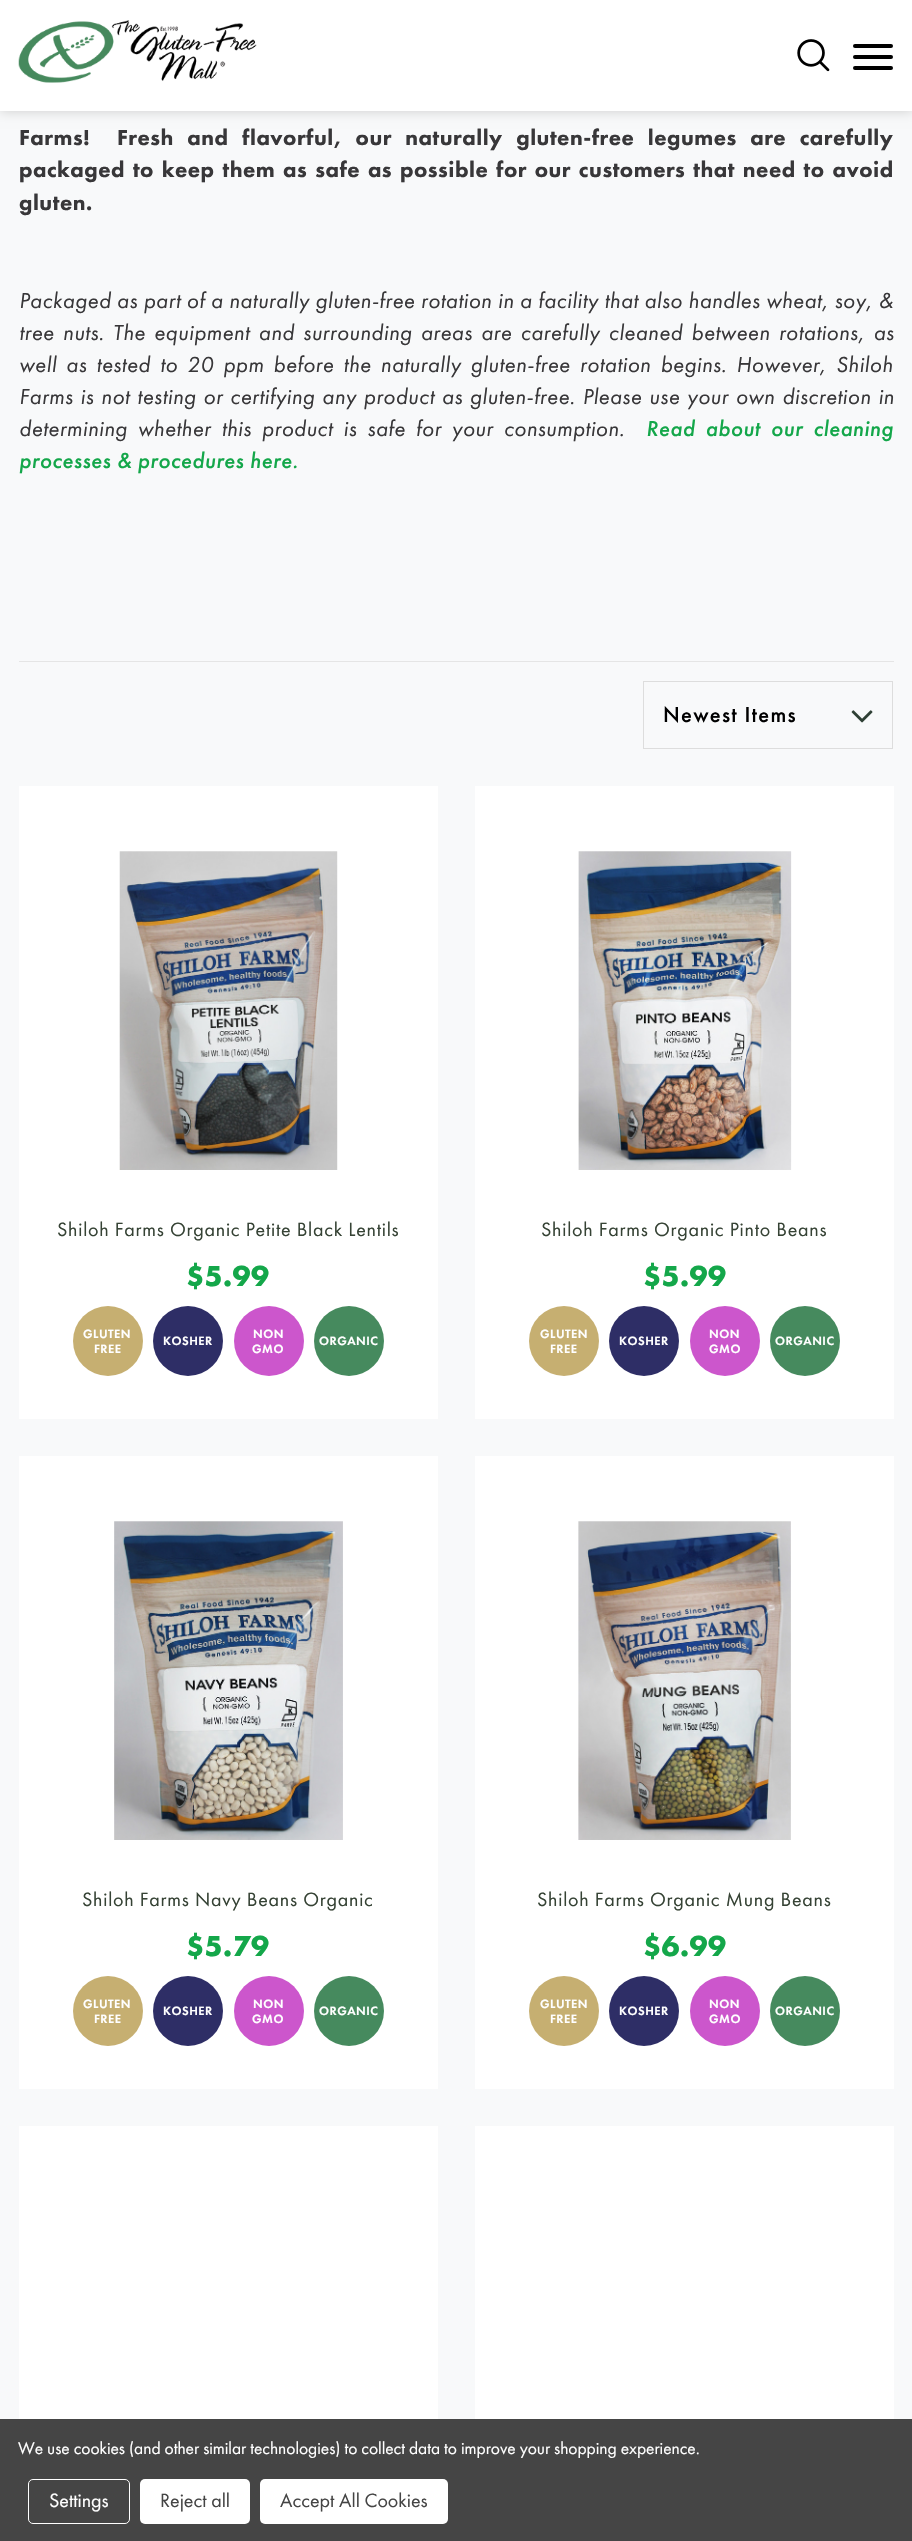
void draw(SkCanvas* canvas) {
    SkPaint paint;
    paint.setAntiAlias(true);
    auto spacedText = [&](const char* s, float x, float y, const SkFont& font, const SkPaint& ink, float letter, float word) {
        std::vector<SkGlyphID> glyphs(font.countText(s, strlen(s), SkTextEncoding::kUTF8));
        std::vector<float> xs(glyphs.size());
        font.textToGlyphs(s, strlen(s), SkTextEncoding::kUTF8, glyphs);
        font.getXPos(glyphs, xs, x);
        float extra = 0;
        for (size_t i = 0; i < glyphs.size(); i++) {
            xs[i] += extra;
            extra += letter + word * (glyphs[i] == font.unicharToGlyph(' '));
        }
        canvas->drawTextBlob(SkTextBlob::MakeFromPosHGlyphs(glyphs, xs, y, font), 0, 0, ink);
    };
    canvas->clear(0xFFF8F9FA);
    paint.setColor(0xFFCCCCCC);
    paint.setMaskFilter(SkMaskFilter::MakeBlur(kNormal_SkBlurStyle, 6));
    canvas->drawRect(SkRect::MakeXYWH(0, -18, 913, 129), paint);
    paint.setMaskFilter(nullptr);
    paint.setColor(0xFFFFFFFF);
    canvas->drawRect(SkRect::MakeXYWH(0, 0, 912, 111), paint);
    canvas->drawImageRect(SkImages::DeferredFromEncodedData(SkData::MakeFromFileName("img1.png")), SkRect::MakeXYWH(18, 20, 239, 63), SkSamplingOptions());
    paint.setColor(0xFF000000);
    canvas->drawRoundRect(SkRect::MakeXYWH(853, 44, 40, 4), 2, 2, paint);
    canvas->drawRoundRect(SkRect::MakeXYWH(853, 55, 40, 4), 2, 2, paint);
    canvas->drawRoundRect(SkRect::MakeXYWH(853, 66, 40, 4), 2, 2, paint);
    canvas->drawImageRect(SkImages::DeferredFromEncodedData(SkData::MakeFromFileName("img2.png")), SkRect::MakeXYWH(797, 39, 33, 33), SkSamplingOptions());
    paint.setColor(0xFFE5E5E5);
    canvas->drawRect(SkRect::MakeXYWH(19, 661, 875, 1), paint);
    SkFont font1(fontMgr->matchFamilyStyle("Futura PT", SkFontStyle(900, SkFontStyle::kNormal_Width, SkFontStyle::kUpright_Slant)), 22.5f);
    font1.setSubpixel(true);
    paint.setColor(0xFF383739);
    spacedText("Farms!  Fresh and flavorful, our naturally gluten-free legumes are carefully", 19, 145, font1, paint, 0.5f, 7.75f);
    spacedText("packaged to keep them as safe as possible for our customers that need to avoid", 19, 177, font1, paint, 0.5f, 2.1f);
    spacedText("gluten.", 19, 210, font1, paint, 0.5f, 0);
    SkFont font2(fontMgr->matchFamilyStyle("Futura PT", SkFontStyle::Italic()), 22.5f);
    font2.setSubpixel(true);
    spacedText("Packaged as part of a naturally gluten-free rotation in a facility that also handles wheat, soy, &", 19, 308, font2, paint, 0.5f, 0.1f);
    spacedText("tree nuts. The equipment and surrounding areas are carefully cleaned between rotations, as", 19, 340, font2, paint, 0.5f, 2.9f);
    spacedText("well as tested to 20 ppm before the naturally gluten-free rotation begins. However, Shiloh", 19, 372, font2, paint, 0.5f, 3.75f);
    spacedText("Farms is not testing or certifying any product as gluten-free. Please use your own discretion in", 19, 404, font2, paint, 0.5f, 1.5f);
    spacedText("determining whether this product is safe for your consumption.", 19, 436, font2, paint, 0.5f, 4.75f);
    SkFont font3(fontMgr->matchFamilyStyle("Futura PT", SkFontStyle(500, SkFontStyle::kNormal_Width, SkFontStyle::kItalic_Slant)), 22.5f);
    font3.setSubpixel(true);
    paint.setColor(0xFF14A74A);
    spacedText("Read about our cleaning", 646, 436, font3, paint, 0.5f, 4.75f);
    spacedText("processes & procedures here.", 19, 468, font3, paint, 0.5f, 0);
    canvas->drawImageRect(SkImages::DeferredFromEncodedData(SkData::MakeFromFileName("img3.png")), SkRect::MakeXYWH(851, 710, 22, 13), SkSamplingOptions());
    paint.setStyle(SkPaint::kStroke_Style);
    paint.setStrokeWidth(1);
    paint.setColor(0xFFDDDDDD);
    canvas->drawRect(SkRect::MakeXYWH(643.5f, 681.5f, 249, 67), paint);
    SkFont font4(fontMgr->matchFamilyStyle("Futura PT", SkFontStyle(500, SkFontStyle::kNormal_Width, SkFontStyle::kUpright_Slant)), 22.5f);
    font4.setSubpixel(true);
    paint.setStyle(SkPaint::kFill_Style);
    paint.setColor(0xFF000000);
    spacedText("Newest Items", 663, 722, font4, paint, 1.25f, 0);
    paint.setColor(0xFFFFFFFF);
    canvas->drawRect(SkRect::MakeXYWH(19, 786, 419, 633), paint);
    canvas->drawImageRect(SkImages::DeferredFromEncodedData(SkData::MakeFromFileName("img4.png")), SkRect::MakeXYWH(119, 851, 219, 319), SkSamplingOptions());
    SkFont font5(fontMgr->matchFamilyStyle("Futura PT", SkFontStyle::Normal()), 20);
    font5.setSubpixel(true);
    paint.setColor(0xFF364335);
    spacedText("Shiloh Farms Organic Petite Black Lentils", 57, 1236, font5, paint, 0.75f, 0);
    SkFont font6(fontMgr->matchFamilyStyle("Futura PT", SkFontStyle::Bold()), 30);
    font6.setSubpixel(true);
    paint.setColor(0xFF14A74A);
    spacedText("$5.99", 186, 1286, font6, paint, 0.5f, 0);
    paint.setColor(0xFFC6AF71);
    canvas->drawCircle(108, 1341, 35, paint);
    SkFont font7(fontMgr->matchFamilyStyle("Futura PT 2", SkFontStyle(500, SkFontStyle::kNormal_Width, SkFontStyle::kUpright_Slant)), 12.5f);
    font7.setSubpixel(true);
    paint.setColor(0xFFFFFFFF);
    spacedText("GLUTEN", 83, 1338, font7, paint, 0.5f, 0);
    spacedText("FREE", 94, 1353, font7, paint, 0.5f, 0);
    paint.setColor(0xFF2E2E66);
    canvas->drawCircle(188, 1341, 35, paint);
    paint.setColor(0xFFFFFFFF);
    spacedText("KOSHER", 163, 1345, font7, paint, 0.5f, 0);
    paint.setColor(0xFFCC56CC);
    canvas->drawCircle(269, 1341, 35, paint);
    paint.setColor(0xFFFFFFFF);
    spacedText("NON", 253, 1338, font7, paint, 0.5f, 0);
    spacedText("GMO", 252, 1353, font7, paint, 0.5f, 0);
    paint.setColor(0xFF468A5E);
    canvas->drawCircle(349, 1341, 35, paint);
    paint.setColor(0xFFFFFFFF);
    spacedText("ORGANIC", 319, 1345, font7, paint, 0.5f, 0);
    canvas->drawRect(SkRect::MakeXYWH(475, 786, 419, 633), paint);
    canvas->drawImageRect(SkImages::DeferredFromEncodedData(SkData::MakeFromFileName("img5.png")), SkRect::MakeXYWH(578, 851, 214, 319), SkSamplingOptions());
    paint.setColor(0xFF364335);
    spacedText("Shiloh Farms Organic Pinto Beans", 541, 1236, font5, paint, 0.75f, 0);
    paint.setColor(0xFF14A74A);
    spacedText("$5.99", 643, 1286, font6, paint, 0.5f, 0);
    paint.setColor(0xFFC6AF71);
    canvas->drawCircle(564, 1341, 35, paint);
    paint.setColor(0xFFFFFFFF);
    spacedText("GLUTEN", 540, 1338, font7, paint, 0.5f, 0);
    spacedText("FREE", 550, 1353, font7, paint, 0.5f, 0);
    paint.setColor(0xFF2E2E66);
    canvas->drawCircle(644, 1341, 35, paint);
    paint.setColor(0xFFFFFFFF);
    spacedText("KOSHER", 619, 1345, font7, paint, 0.5f, 0);
    paint.setColor(0xFFCC56CC);
    canvas->drawCircle(725, 1341, 35, paint);
    paint.setColor(0xFFFFFFFF);
    spacedText("NON", 709, 1338, font7, paint, 0.5f, 0);
    spacedText("GMO", 709, 1353, font7, paint, 0.5f, 0);
    paint.setColor(0xFF468A5E);
    canvas->drawCircle(805, 1341, 35, paint);
    paint.setColor(0xFFFFFFFF);
    spacedText("ORGANIC", 775, 1345, font7, paint, 0.5f, 0);
    canvas->drawRect(SkRect::MakeXYWH(19, 1456, 419, 633), paint);
    canvas->drawImageRect(SkImages::DeferredFromEncodedData(SkData::MakeFromFileName("img6.png")), SkRect::MakeXYWH(114, 1521, 229, 319), SkSamplingOptions());
    paint.setColor(0xFF364335);
    spacedText("Shiloh Farms Navy Beans Organic", 82, 1906, font5, paint, 0.75f, 0);
    paint.setColor(0xFF14A74A);
    spacedText("$5.79", 186, 1956, font6, paint, 0.5f, 0);
    paint.setColor(0xFFC6AF71);
    canvas->drawCircle(108, 2011, 35, paint);
    paint.setColor(0xFFFFFFFF);
    spacedText("GLUTEN", 83, 2008, font7, paint, 0.5f, 0);
    spacedText("FREE", 94, 2023, font7, paint, 0.5f, 0);
    paint.setColor(0xFF2E2E66);
    canvas->drawCircle(188, 2011, 35, paint);
    paint.setColor(0xFFFFFFFF);
    spacedText("KOSHER", 163, 2015, font7, paint, 0.5f, 0);
    paint.setColor(0xFFCC56CC);
    canvas->drawCircle(269, 2011, 35, paint);
    paint.setColor(0xFFFFFFFF);
    spacedText("NON", 253, 2008, font7, paint, 0.5f, 0);
    spacedText("GMO", 252, 2023, font7, paint, 0.5f, 0);
    paint.setColor(0xFF468A5E);
    canvas->drawCircle(349, 2011, 35, paint);
    paint.setColor(0xFFFFFFFF);
    spacedText("ORGANIC", 319, 2015, font7, paint, 0.5f, 0);
    canvas->drawRect(SkRect::MakeXYWH(475, 1456, 419, 633), paint);
    canvas->drawImageRect(SkImages::DeferredFromEncodedData(SkData::MakeFromFileName("img7.png")), SkRect::MakeXYWH(578, 1521, 213, 319), SkSamplingOptions());
    paint.setColor(0xFF364335);
    spacedText("Shiloh Farms Organic Mung Beans", 537, 1906, font5, paint, 0.75f, 0);
    paint.setColor(0xFF14A74A);
    spacedText("$6.99", 643, 1956, font6, paint, 0.5f, 0);
    paint.setColor(0xFFC6AF71);
    canvas->drawCircle(564, 2011, 35, paint);
    paint.setColor(0xFFFFFFFF);
    spacedText("GLUTEN", 540, 2008, font7, paint, 0.5f, 0);
    spacedText("FREE", 550, 2023, font7, paint, 0.5f, 0);
    paint.setColor(0xFF2E2E66);
    canvas->drawCircle(644, 2011, 35, paint);
    paint.setColor(0xFFFFFFFF);
    spacedText("KOSHER", 619, 2015, font7, paint, 0.5f, 0);
    paint.setColor(0xFFCC56CC);
    canvas->drawCircle(725, 2011, 35, paint);
    paint.setColor(0xFFFFFFFF);
    spacedText("NON", 709, 2008, font7, paint, 0.5f, 0);
    spacedText("GMO", 709, 2023, font7, paint, 0.5f, 0);
    paint.setColor(0xFF468A5E);
    canvas->drawCircle(805, 2011, 35, paint);
    paint.setColor(0xFFFFFFFF);
    spacedText("ORGANIC", 775, 2015, font7, paint, 0.5f, 0);
    canvas->drawRect(SkRect::MakeXYWH(19, 2126, 419, 293), paint);
    canvas->drawRect(SkRect::MakeXYWH(475, 2126, 419, 293), paint);
    paint.setColor(0xFF454545);
    canvas->drawRect(SkRect::MakeXYWH(0, 2419, 912, 122), paint);
    SkFont font8(fontMgr->matchFamilyStyle("Futura PT", SkFontStyle::Normal()), 17.5f);
    font8.setSubpixel(true);
    paint.setColor(0xFFFFFFFF);
    spacedText("We use cookies (and other similar technologies) to collect data to improve your shopping experience.", 18, 2454, font8, paint, -0.05f, 0);
    paint.setStyle(SkPaint::kStroke_Style);
    canvas->drawRoundRect(SkRect::MakeXYWH(28.5f, 2479.5f, 101, 44), 4.5f, 4.5f, paint);
    paint.setStyle(SkPaint::kFill_Style);
    canvas->drawString("Settings", 49, 2507, font5, paint);
    canvas->drawRoundRect(SkRect::MakeXYWH(140, 2479, 110, 45), 5, 5, paint);
    paint.setColor(0xFF454545);
    canvas->drawString("Reject all", 160, 2507, font5, paint);
    paint.setColor(0xFFFFFFFF);
    canvas->drawRoundRect(SkRect::MakeXYWH(260, 2479, 188, 45), 5, 5, paint);
    paint.setColor(0xFF454545);
    canvas->drawString("Accept All Cookies", 280, 2507, font5, paint);
}
